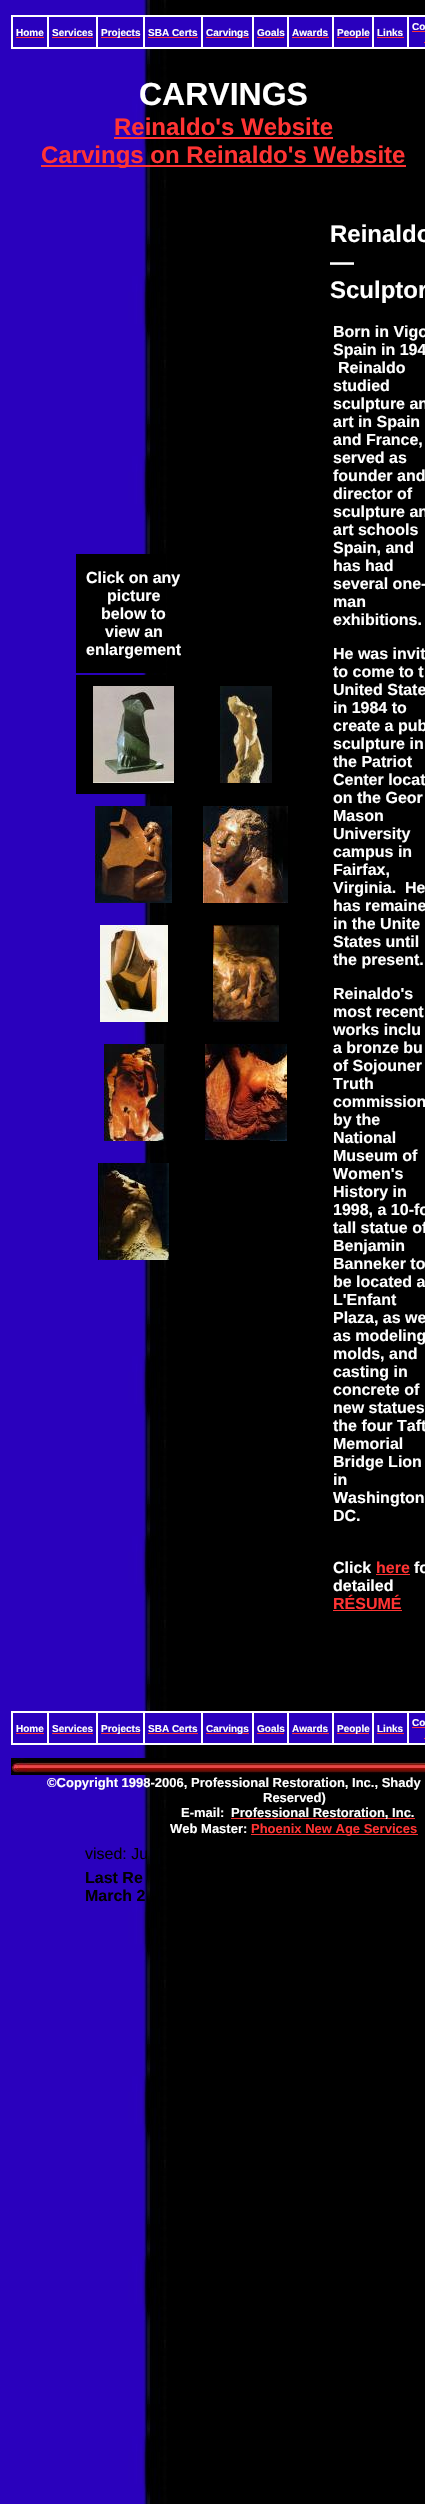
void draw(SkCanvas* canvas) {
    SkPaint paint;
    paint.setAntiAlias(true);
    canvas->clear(0xFFFFFFFF);
    canvas->drawImageRect(SkImages::DeferredFromEncodedData(SkData::MakeFromFileName("img1.png")), SkRect::MakeXYWH(0, 0, 425, 2504), SkSamplingOptions());
    paint.setColor(0xFFFFFFFF);
    canvas->drawRect(SkRect::MakeXYWH(11, 15, 414, 34), paint);
    paint.setColor(0xFF2900BD);
    canvas->drawRect(SkRect::MakeXYWH(409, 17, 16, 30), paint);
    SkFont font1(fontMgr->matchFamilyStyle("Liberation Sans", SkFontStyle::Bold()), 10);
    font1.setSubpixel(true);
    paint.setColor(0xFFFFFFFF);
    canvas->drawString("Co", 412, 30, font1, paint);
    paint.setColor(0xFFFF3333);
    canvas->drawRect(SkRect::MakeXYWH(412, 31, 13, 1), paint);
    canvas->drawRect(SkRect::MakeXYWH(424, 42, 1, 1), paint);
    paint.setColor(0xFF2900BD);
    canvas->drawRect(SkRect::MakeXYWH(13, 17, 34, 30), paint);
    paint.setColor(0xFFFFFFFF);
    canvas->drawString("Home", 16, 36, font1, paint);
    paint.setColor(0xFFFF3333);
    canvas->drawRect(SkRect::MakeXYWH(16, 37, 28, 1), paint);
    paint.setColor(0xFF2900BD);
    canvas->drawRect(SkRect::MakeXYWH(49, 17, 47, 30), paint);
    paint.setColor(0xFFFFFFFF);
    canvas->drawString("Services", 52, 36, font1, paint);
    paint.setColor(0xFFFF3333);
    canvas->drawRect(SkRect::MakeXYWH(52, 37, 41, 1), paint);
    paint.setColor(0xFF2900BD);
    canvas->drawRect(SkRect::MakeXYWH(98, 17, 45, 30), paint);
    paint.setColor(0xFFFF3333);
    canvas->drawRect(SkRect::MakeXYWH(101, 37, 39, 1), paint);
    paint.setColor(0xFFFFFFFF);
    canvas->drawString("Projects", 101, 36, font1, paint);
    paint.setColor(0xFF2900BD);
    canvas->drawRect(SkRect::MakeXYWH(145, 17, 56, 30), paint);
    paint.setColor(0xFFFFFFFF);
    canvas->drawString("SBA Certs", 148, 36, font1, paint);
    paint.setColor(0xFFFF3333);
    canvas->drawRect(SkRect::MakeXYWH(148, 37, 50, 1), paint);
    paint.setColor(0xFF2900BD);
    canvas->drawRect(SkRect::MakeXYWH(203, 17, 49, 30), paint);
    paint.setColor(0xFFFF3333);
    canvas->drawRect(SkRect::MakeXYWH(206, 37, 43, 1), paint);
    paint.setColor(0xFFFFFFFF);
    canvas->drawString("Carvings", 206, 36, font1, paint);
    paint.setColor(0xFF2900BD);
    canvas->drawRect(SkRect::MakeXYWH(254, 17, 33, 30), paint);
    paint.setColor(0xFFFFFFFF);
    canvas->drawString("Goals", 257, 36, font1, paint);
    paint.setColor(0xFFFF3333);
    canvas->drawRect(SkRect::MakeXYWH(257, 37, 27, 1), paint);
    paint.setColor(0xFF2900BD);
    canvas->drawRect(SkRect::MakeXYWH(289, 17, 43, 30), paint);
    paint.setColor(0xFFFFFFFF);
    canvas->drawString("Awards", 292, 36, font1, paint);
    paint.setColor(0xFFFF3333);
    canvas->drawRect(SkRect::MakeXYWH(292, 37, 37, 1), paint);
    paint.setColor(0xFF2900BD);
    canvas->drawRect(SkRect::MakeXYWH(334, 17, 38, 30), paint);
    paint.setColor(0xFFFF3333);
    canvas->drawRect(SkRect::MakeXYWH(337, 37, 32, 1), paint);
    paint.setColor(0xFFFFFFFF);
    canvas->drawString("People", 337, 36, font1, paint);
    paint.setColor(0xFF2900BD);
    canvas->drawRect(SkRect::MakeXYWH(374, 17, 33, 30), paint);
    paint.setColor(0xFFFFFFFF);
    canvas->drawString("Links", 377, 36, font1, paint);
    paint.setColor(0xFFFF3333);
    canvas->drawRect(SkRect::MakeXYWH(377, 37, 27, 1), paint);
    SkFont font2(fontMgr->matchFamilyStyle("Liberation Sans", SkFontStyle::Bold()), 32);
    font2.setSubpixel(true);
    paint.setColor(0xFFFFFFFF);
    canvas->drawString("CARVINGS", 139, 105, font2, paint);
    SkFont font3(fontMgr->matchFamilyStyle("Liberation Sans", SkFontStyle::Bold()), 24);
    font3.setSubpixel(true);
    paint.setColor(0xFFFF3333);
    canvas->drawString("Reinaldo's Website", 114, 135, font3, paint);
    canvas->drawRect(SkRect::MakeXYWH(114, 137, 219, 2), paint);
    canvas->drawRect(SkRect::MakeXYWH(41, 165, 365, 2), paint);
    canvas->drawString("Carvings on Reinaldo's Website", 41, 163, font3, paint);
    paint.setColor(0xFF000000);
    canvas->drawRect(SkRect::MakeXYWH(76, 554, 90, 119), paint);
    SkFont font4(fontMgr->matchFamilyStyle("Liberation Sans", SkFontStyle::Bold()), 16);
    font4.setSubpixel(true);
    paint.setColor(0xFFFFFFFF);
    canvas->drawString("Click on any", 86, 583, font4, paint);
    canvas->drawString("picture", 107, 601, font4, paint);
    canvas->drawString("below to", 101, 619, font4, paint);
    canvas->drawString("view an", 105, 637, font4, paint);
    canvas->drawString("enlargement", 86, 655, font4, paint);
    paint.setColor(0xFF000000);
    canvas->drawRect(SkRect::MakeXYWH(76, 675, 90, 119), paint);
    canvas->drawImageRect(SkImages::DeferredFromEncodedData(SkData::MakeFromFileName("img2.png")), SkRect::MakeXYWH(93, 686, 81, 97), SkSamplingOptions());
    canvas->drawImageRect(SkImages::DeferredFromEncodedData(SkData::MakeFromFileName("img3.png")), SkRect::MakeXYWH(220, 686, 52, 97), SkSamplingOptions());
    canvas->drawImageRect(SkImages::DeferredFromEncodedData(SkData::MakeFromFileName("img4.png")), SkRect::MakeXYWH(95, 806, 77, 97), SkSamplingOptions());
    canvas->drawImageRect(SkImages::DeferredFromEncodedData(SkData::MakeFromFileName("img5.png")), SkRect::MakeXYWH(203, 806, 85, 97), SkSamplingOptions());
    canvas->drawImageRect(SkImages::DeferredFromEncodedData(SkData::MakeFromFileName("img6.png")), SkRect::MakeXYWH(100, 925, 68, 97), SkSamplingOptions());
    canvas->drawImageRect(SkImages::DeferredFromEncodedData(SkData::MakeFromFileName("img7.png")), SkRect::MakeXYWH(213, 925, 66, 97), SkSamplingOptions());
    canvas->drawImageRect(SkImages::DeferredFromEncodedData(SkData::MakeFromFileName("img8.png")), SkRect::MakeXYWH(104, 1044, 60, 97), SkSamplingOptions());
    canvas->drawImageRect(SkImages::DeferredFromEncodedData(SkData::MakeFromFileName("img9.png")), SkRect::MakeXYWH(205, 1044, 82, 97), SkSamplingOptions());
    canvas->drawImageRect(SkImages::DeferredFromEncodedData(SkData::MakeFromFileName("img10.png")), SkRect::MakeXYWH(98, 1163, 71, 97), SkSamplingOptions());
    paint.setColor(0xFFFFFFFF);
    canvas->drawString("Reinaldo", 330, 242, font3, paint);
    canvas->drawString("—", 330, 270, font3, paint);
    canvas->drawString("Sculptor", 330, 298, font3, paint);
    canvas->drawString("Born in Vigo", 333, 337, font4, paint);
    canvas->drawString("Spain in 194", 333, 355, font4, paint);
    canvas->drawString("Reinaldo", 338, 373, font4, paint);
    canvas->drawString("studied", 333, 391, font4, paint);
    canvas->drawString("sculpture an", 333, 409, font4, paint);
    canvas->drawString("art in Spain", 333, 427, font4, paint);
    canvas->drawString("and France,", 333, 445, font4, paint);
    canvas->drawString("served as", 333, 463, font4, paint);
    canvas->drawString("founder and", 333, 481, font4, paint);
    canvas->drawString("director of", 333, 499, font4, paint);
    canvas->drawString("sculpture an", 333, 517, font4, paint);
    canvas->drawString("art schools", 333, 535, font4, paint);
    canvas->drawString("Spain, and", 333, 553, font4, paint);
    canvas->drawString("has had", 333, 571, font4, paint);
    canvas->drawString("several one-", 333, 589, font4, paint);
    canvas->drawString("man", 333, 607, font4, paint);
    canvas->drawString("exhibitions.", 333, 625, font4, paint);
    canvas->drawString("He was invit", 333, 659, font4, paint);
    canvas->drawString("to come to t", 333, 677, font4, paint);
    canvas->drawString("United State", 333, 695, font4, paint);
    canvas->drawString("in 1984 to", 333, 713, font4, paint);
    canvas->drawString("create a pub", 333, 731, font4, paint);
    canvas->drawString("sculpture in", 333, 749, font4, paint);
    canvas->drawString("the Patriot", 333, 767, font4, paint);
    canvas->drawString("Center locat", 333, 785, font4, paint);
    canvas->drawString("on the Geor", 333, 803, font4, paint);
    canvas->drawString("Mason", 333, 821, font4, paint);
    canvas->drawString("University", 333, 839, font4, paint);
    canvas->drawString("campus in", 333, 857, font4, paint);
    canvas->drawString("Fairfax,", 333, 875, font4, paint);
    canvas->drawString("Virginia.  He", 333, 893, font4, paint);
    canvas->drawString("has remaine", 333, 911, font4, paint);
    canvas->drawString("in the Unite", 333, 929, font4, paint);
    canvas->drawString("States until", 333, 947, font4, paint);
    canvas->drawString("the present.", 333, 965, font4, paint);
    canvas->drawString("Reinaldo's", 333, 999, font4, paint);
    canvas->drawString("most recent", 333, 1017, font4, paint);
    canvas->drawString("works inclu", 333, 1035, font4, paint);
    canvas->drawString("a bronze bu", 333, 1053, font4, paint);
    canvas->drawString("of Sojouner", 333, 1071, font4, paint);
    canvas->drawString("Truth", 333, 1089, font4, paint);
    canvas->drawString("commission", 333, 1107, font4, paint);
    canvas->drawString("by the", 333, 1125, font4, paint);
    canvas->drawString("National", 333, 1143, font4, paint);
    canvas->drawString("Museum of", 333, 1161, font4, paint);
    canvas->drawString("Women's", 333, 1179, font4, paint);
    canvas->drawString("History in", 333, 1197, font4, paint);
    canvas->drawString("1998, a 10-fo", 333, 1215, font4, paint);
    canvas->drawString("tall statue of", 333, 1233, font4, paint);
    canvas->drawString("Benjamin", 333, 1251, font4, paint);
    canvas->drawString("Banneker to", 333, 1269, font4, paint);
    canvas->drawString("be located a", 333, 1287, font4, paint);
    canvas->drawString("L'Enfant", 333, 1305, font4, paint);
    canvas->drawString("Plaza, as we", 333, 1323, font4, paint);
    canvas->drawString("as modeling", 333, 1341, font4, paint);
    canvas->drawString("molds, and", 333, 1359, font4, paint);
    canvas->drawString("casting in", 333, 1377, font4, paint);
    canvas->drawString("concrete of", 333, 1395, font4, paint);
    canvas->drawString("new statues", 333, 1413, font4, paint);
    canvas->drawString("the four Taft", 333, 1431, font4, paint);
    canvas->drawString("Memorial", 333, 1449, font4, paint);
    canvas->drawString("Bridge Lion", 333, 1467, font4, paint);
    canvas->drawString("in", 333, 1485, font4, paint);
    canvas->drawString("Washington", 333, 1503, font4, paint);
    canvas->drawString("DC.", 333, 1521, font4, paint);
    canvas->drawString("Click", 333, 1573, font4, paint);
    paint.setColor(0xFFFF3333);
    canvas->drawString("here", 376, 1573, font4, paint);
    canvas->drawRect(SkRect::MakeXYWH(376, 1574, 34, 1), paint);
    paint.setColor(0xFFFFFFFF);
    canvas->drawString("fo", 414, 1573, font4, paint);
    canvas->drawString("detailed", 333, 1591, font4, paint);
    paint.setColor(0xFFFF3333);
    canvas->drawString("RÉSUMÉ", 333, 1609, font4, paint);
    canvas->drawRect(SkRect::MakeXYWH(333, 1610, 69, 1), paint);
    paint.setColor(0xFFFFFFFF);
    canvas->drawRect(SkRect::MakeXYWH(11, 1711, 414, 34), paint);
    paint.setColor(0xFF2900BD);
    canvas->drawRect(SkRect::MakeXYWH(409, 1713, 16, 30), paint);
    paint.setColor(0xFFFFFFFF);
    canvas->drawString("Co", 412, 1726, font1, paint);
    paint.setColor(0xFFFF3333);
    canvas->drawRect(SkRect::MakeXYWH(412, 1727, 13, 1), paint);
    canvas->drawRect(SkRect::MakeXYWH(424, 1738, 1, 1), paint);
    paint.setColor(0xFF2900BD);
    canvas->drawRect(SkRect::MakeXYWH(13, 1713, 34, 30), paint);
    paint.setColor(0xFFFFFFFF);
    canvas->drawString("Home", 16, 1732, font1, paint);
    paint.setColor(0xFFFF3333);
    canvas->drawRect(SkRect::MakeXYWH(16, 1733, 28, 1), paint);
    paint.setColor(0xFF2900BD);
    canvas->drawRect(SkRect::MakeXYWH(49, 1713, 47, 30), paint);
    paint.setColor(0xFFFFFFFF);
    canvas->drawString("Services", 52, 1732, font1, paint);
    paint.setColor(0xFFFF3333);
    canvas->drawRect(SkRect::MakeXYWH(52, 1733, 41, 1), paint);
    paint.setColor(0xFF2900BD);
    canvas->drawRect(SkRect::MakeXYWH(98, 1713, 45, 30), paint);
    paint.setColor(0xFFFF3333);
    canvas->drawRect(SkRect::MakeXYWH(101, 1733, 39, 1), paint);
    paint.setColor(0xFFFFFFFF);
    canvas->drawString("Projects", 101, 1732, font1, paint);
    paint.setColor(0xFF2900BD);
    canvas->drawRect(SkRect::MakeXYWH(145, 1713, 56, 30), paint);
    paint.setColor(0xFFFFFFFF);
    canvas->drawString("SBA Certs", 148, 1732, font1, paint);
    paint.setColor(0xFFFF3333);
    canvas->drawRect(SkRect::MakeXYWH(148, 1733, 50, 1), paint);
    paint.setColor(0xFF2900BD);
    canvas->drawRect(SkRect::MakeXYWH(203, 1713, 49, 30), paint);
    paint.setColor(0xFFFF3333);
    canvas->drawRect(SkRect::MakeXYWH(206, 1733, 43, 1), paint);
    paint.setColor(0xFFFFFFFF);
    canvas->drawString("Carvings", 206, 1732, font1, paint);
    paint.setColor(0xFF2900BD);
    canvas->drawRect(SkRect::MakeXYWH(254, 1713, 33, 30), paint);
    paint.setColor(0xFFFFFFFF);
    canvas->drawString("Goals", 257, 1732, font1, paint);
    paint.setColor(0xFFFF3333);
    canvas->drawRect(SkRect::MakeXYWH(257, 1733, 27, 1), paint);
    paint.setColor(0xFF2900BD);
    canvas->drawRect(SkRect::MakeXYWH(289, 1713, 43, 30), paint);
    paint.setColor(0xFFFFFFFF);
    canvas->drawString("Awards", 292, 1732, font1, paint);
    paint.setColor(0xFFFF3333);
    canvas->drawRect(SkRect::MakeXYWH(292, 1733, 37, 1), paint);
    paint.setColor(0xFF2900BD);
    canvas->drawRect(SkRect::MakeXYWH(334, 1713, 38, 30), paint);
    paint.setColor(0xFFFF3333);
    canvas->drawRect(SkRect::MakeXYWH(337, 1733, 32, 1), paint);
    paint.setColor(0xFFFFFFFF);
    canvas->drawString("People", 337, 1732, font1, paint);
    paint.setColor(0xFF2900BD);
    canvas->drawRect(SkRect::MakeXYWH(374, 1713, 33, 30), paint);
    paint.setColor(0xFFFFFFFF);
    canvas->drawString("Links", 377, 1732, font1, paint);
    paint.setColor(0xFFFF3333);
    canvas->drawRect(SkRect::MakeXYWH(377, 1733, 27, 1), paint);
    canvas->drawImageRect(SkImages::DeferredFromEncodedData(SkData::MakeFromFileName("img11.png")), SkRect::MakeXYWH(11, 1758, 414, 17), SkSamplingOptions());
    SkFont font5(fontMgr->matchFamilyStyle("Liberation Sans", SkFontStyle::Bold()), 13);
    font5.setSubpixel(true);
    paint.setColor(0xFFFFFFFF);
    canvas->drawString("©Copyright 1998-2006, Professional Restoration, Inc., Shady", 47, 1787, font5, paint);
    canvas->drawString("Reserved)", 263, 1802, font5, paint);
    canvas->drawString("E-mail:", 181, 1817, font5, paint);
    paint.setColor(0xFFFF3333);
    canvas->drawRect(SkRect::MakeXYWH(231, 1818, 184, 1), paint);
    paint.setColor(0xFFFFFFFF);
    canvas->drawString("Professional Restoration, Inc.", 231, 1817, font5, paint);
    canvas->drawString("Web Master:", 170, 1833, font5, paint);
    paint.setColor(0xFFFF3333);
    canvas->drawRect(SkRect::MakeXYWH(251, 1834, 167, 1), paint);
    canvas->drawString("Phoenix New Age Services", 251, 1833, font5, paint);
    SkFont font6(fontMgr->matchFamilyStyle("Liberation Sans", SkFontStyle::Normal()), 16);
    font6.setSubpixel(true);
    paint.setColor(0xFF000000);
    canvas->drawString("vised: Ju", 85, 1859, font6, paint);
    canvas->drawString("Last Re", 85, 1883, font4, paint);
    canvas->drawString("March 2", 85, 1901, font4, paint);
}
